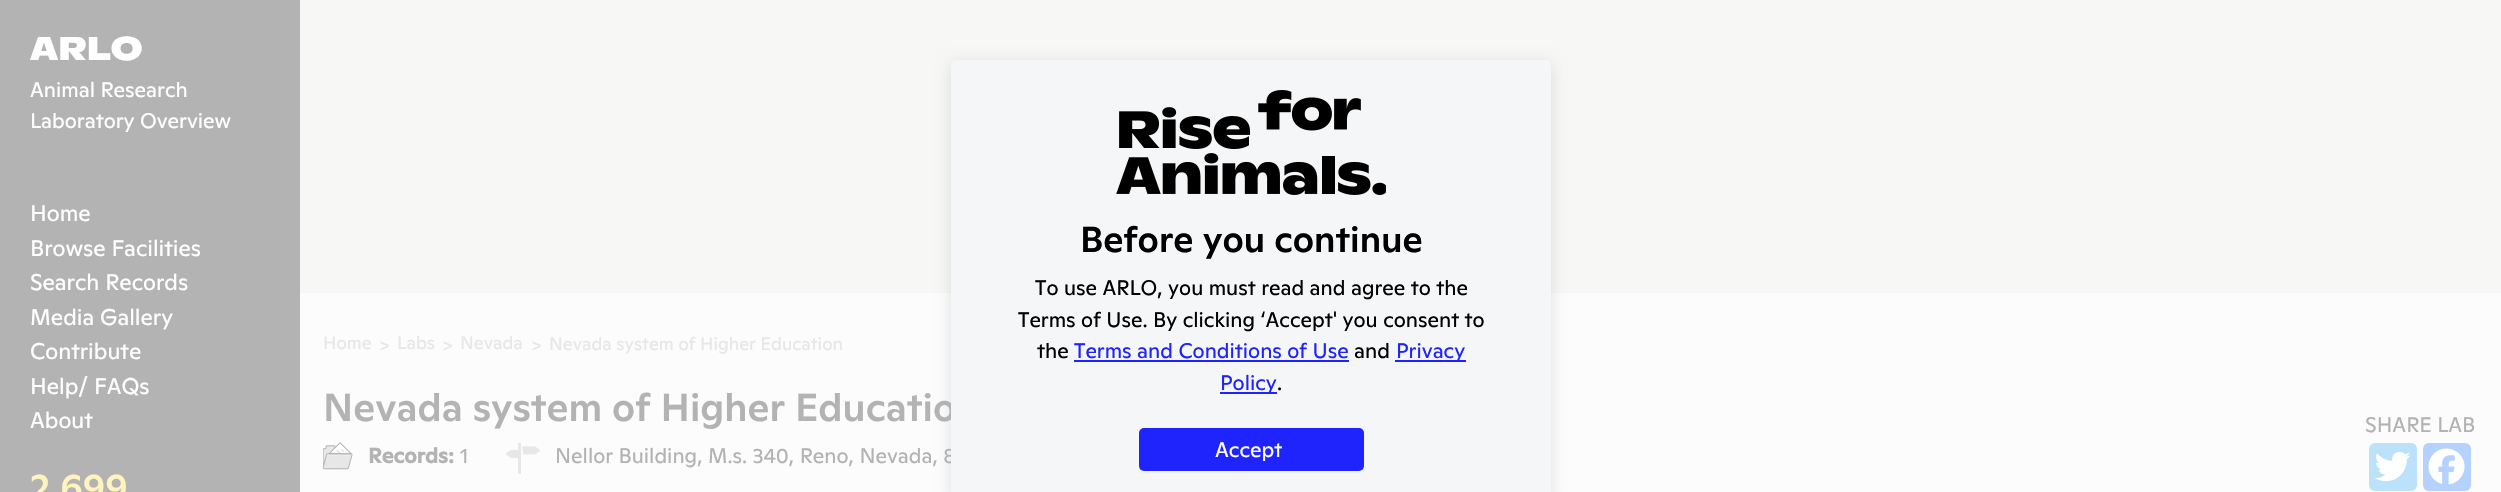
void draw(SkCanvas* canvas) {
    SkPaint paint;
    paint.setAntiAlias(true);
    canvas->clear(0xFFFCFCFD);
    paint.setColor(0xFFB3B3B3);
    canvas->drawRect(SkRect::MakeXYWH(0, 0, 300, 492), paint);
    SkFont font1(fontMgr->matchFamilyStyle("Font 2", SkFontStyle::Bold()), 33);
    font1.setSubpixel(true);
    paint.setColor(0xFFFFFFFF);
    canvas->drawString("ARLO", 30, 60, font1, paint);
    SkFont font2(fontMgr->matchFamilyStyle("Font", SkFontStyle::Normal()), 21);
    font2.setSubpixel(true);
    canvas->drawString("Animal Research", 30, 97, font2, paint);
    canvas->drawString("Laboratory Overview", 30, 128, font2, paint);
    SkFont font3(fontMgr->matchFamilyStyle("Font", SkFontStyle::Normal()), 22.5f);
    font3.setSubpixel(true);
    canvas->drawString("Home", 30, 221, font3, paint);
    canvas->drawString("Browse Facilities", 30, 256, font3, paint);
    canvas->drawString("Search Records", 30, 290, font3, paint);
    canvas->drawString("Media Gallery", 30, 325, font3, paint);
    canvas->drawString("Contribute", 30, 359, font3, paint);
    canvas->drawString("Help/ FAQs", 30, 394, font3, paint);
    canvas->drawString("About", 30, 428, font3, paint);
    SkFont font4(fontMgr->matchFamilyStyle("Font", SkFontStyle(500, SkFontStyle::kNormal_Width, SkFontStyle::kUpright_Slant)), 37.5f);
    font4.setSubpixel(true);
    paint.setColor(0xFFFFF4BE);
    canvas->drawString("2,699", 30, 500, font4, paint);
    paint.setColor(0xFFF7F7F5);
    canvas->drawRect(SkRect::MakeXYWH(300, 0, 2201, 293), paint);
    paint.setColor(0x1C000000);
    paint.setMaskFilter(SkMaskFilter::MakeBlur(kNormal_SkBlurStyle, 7.5f));
    canvas->drawRoundRect(SkRect::MakeXYWH(951, 63, 600, 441), 5, 5, paint);
    paint.setMaskFilter(nullptr);
    SkFont font5(fontMgr->matchFamilyStyle("Font", SkFontStyle(500, SkFontStyle::kNormal_Width, SkFontStyle::kUpright_Slant)), 39);
    font5.setSubpixel(true);
    paint.setColor(0xFFB3B3B3);
    canvas->drawString("Nevada system of Higher Educatio", 323, 421, font5, paint);
    canvas->drawString("Nellor Building, M.s. 340, Reno, Nevada, 8", 555, 463, font2, paint);
    paint.setColor(0xFFF5F6F8);
    canvas->drawPath(SkPathBuilder().moveTo(956, 60).lineTo(1546, 60).cubicTo(1549, 60, 1551, 62, 1551, 65).lineTo(1551, 492).lineTo(951, 492).lineTo(951, 65).cubicTo(951, 62, 953, 60, 956, 60).close().detach(), paint);
    canvas->drawImageRect(SkImages::DeferredFromEncodedData(SkData::MakeFromFileName("img1.png")), SkRect::MakeXYWH(1116, 90, 270, 105), SkSamplingOptions());
    SkFont font6(fontMgr->matchFamilyStyle("Font", SkFontStyle(500, SkFontStyle::kNormal_Width, SkFontStyle::kUpright_Slant)), 36);
    font6.setSubpixel(true);
    paint.setColor(0xFF000000);
    canvas->drawString("Before you continue", 1080, 252, font6, paint);
    canvas->drawString("To use ARLO, you must read and agree to the", 1035, 295, font2, paint);
    canvas->drawString("Terms of Use. By clicking ‘Accept' you consent to", 1018, 327, font2, paint);
    canvas->drawString("the", 1037, 358, font2, paint);
    paint.setColor(0xFF1E24FB);
    canvas->drawString("Terms and Conditions of Use", 1074, 358, font2, paint);
    canvas->drawRect(SkRect::MakeXYWH(1074, 360, 275, 2), paint);
    paint.setColor(0xFF000000);
    canvas->drawString("and", 1354, 358, font2, paint);
    paint.setColor(0xFF1E24FB);
    canvas->drawRect(SkRect::MakeXYWH(1395, 360, 71, 2), paint);
    canvas->drawString("Privacy", 1396, 358, font2, paint);
    canvas->drawRect(SkRect::MakeXYWH(1220, 392, 57, 2), paint);
    canvas->drawString("Policy", 1220, 390, font2, paint);
    paint.setColor(0xFF000000);
    canvas->drawString(".", 1277, 390, font2, paint);
    paint.setColor(0xFF1E24FB);
    canvas->drawRoundRect(SkRect::MakeXYWH(1139, 428, 225, 43), 5, 5, paint);
    paint.setColor(0xFFFFFFFF);
    canvas->drawString("Accept", 1215, 457, font2, paint);
    SkFont font7(fontMgr->matchFamilyStyle("Font", SkFontStyle::Normal()), 18);
    font7.setSubpixel(true);
    paint.setColor(0xFFE7E7E7);
    canvas->drawString("Home", 323, 349, font7, paint);
    canvas->drawString(">", 379, 352, font7, paint);
    canvas->drawString("Labs", 397, 349, font7, paint);
    canvas->drawString(">", 442, 352, font7, paint);
    canvas->drawString("Nevada", 460, 349, font7, paint);
    canvas->drawString(">", 531, 352, font7, paint);
    canvas->drawString("Nevada system of Higher Education", 549, 350, font7, paint);
    canvas->drawImageRect(SkImages::DeferredFromEncodedData(SkData::MakeFromFileName("img2.png")), SkRect::MakeXYWH(323, 442, 30, 28), SkSamplingOptions());
    SkFont font8(fontMgr->matchFamilyStyle("Font", SkFontStyle::Bold()), 21);
    font8.setSubpixel(true);
    paint.setColor(0xFFB3B3B3);
    canvas->drawString("Records:", 368, 463, font8, paint);
    canvas->drawString("1", 460, 463, font2, paint);
    canvas->drawImageRect(SkImages::DeferredFromEncodedData(SkData::MakeFromFileName("img3.png")), SkRect::MakeXYWH(506, 443, 34, 31), SkSamplingOptions());
    canvas->drawString("SHARE LAB", 2365, 432, font2, paint);
    paint.setColor(0xFFBBE1FB);
    canvas->drawRoundRect(SkRect::MakeXYWH(2369, 443, 48, 48), 6, 6, paint);
    canvas->drawImageRect(SkImages::DeferredFromEncodedData(SkData::MakeFromFileName("img4.png")), SkRect::MakeXYWH(2374, 451, 37, 31), SkSamplingOptions());
    paint.setColor(0xFFB5D1FF);
    canvas->drawRoundRect(SkRect::MakeXYWH(2423, 443, 48, 48), 6, 6, paint);
    canvas->drawImageRect(SkImages::DeferredFromEncodedData(SkData::MakeFromFileName("img5.png")), SkRect::MakeXYWH(2428, 448, 37, 37), SkSamplingOptions());
}
